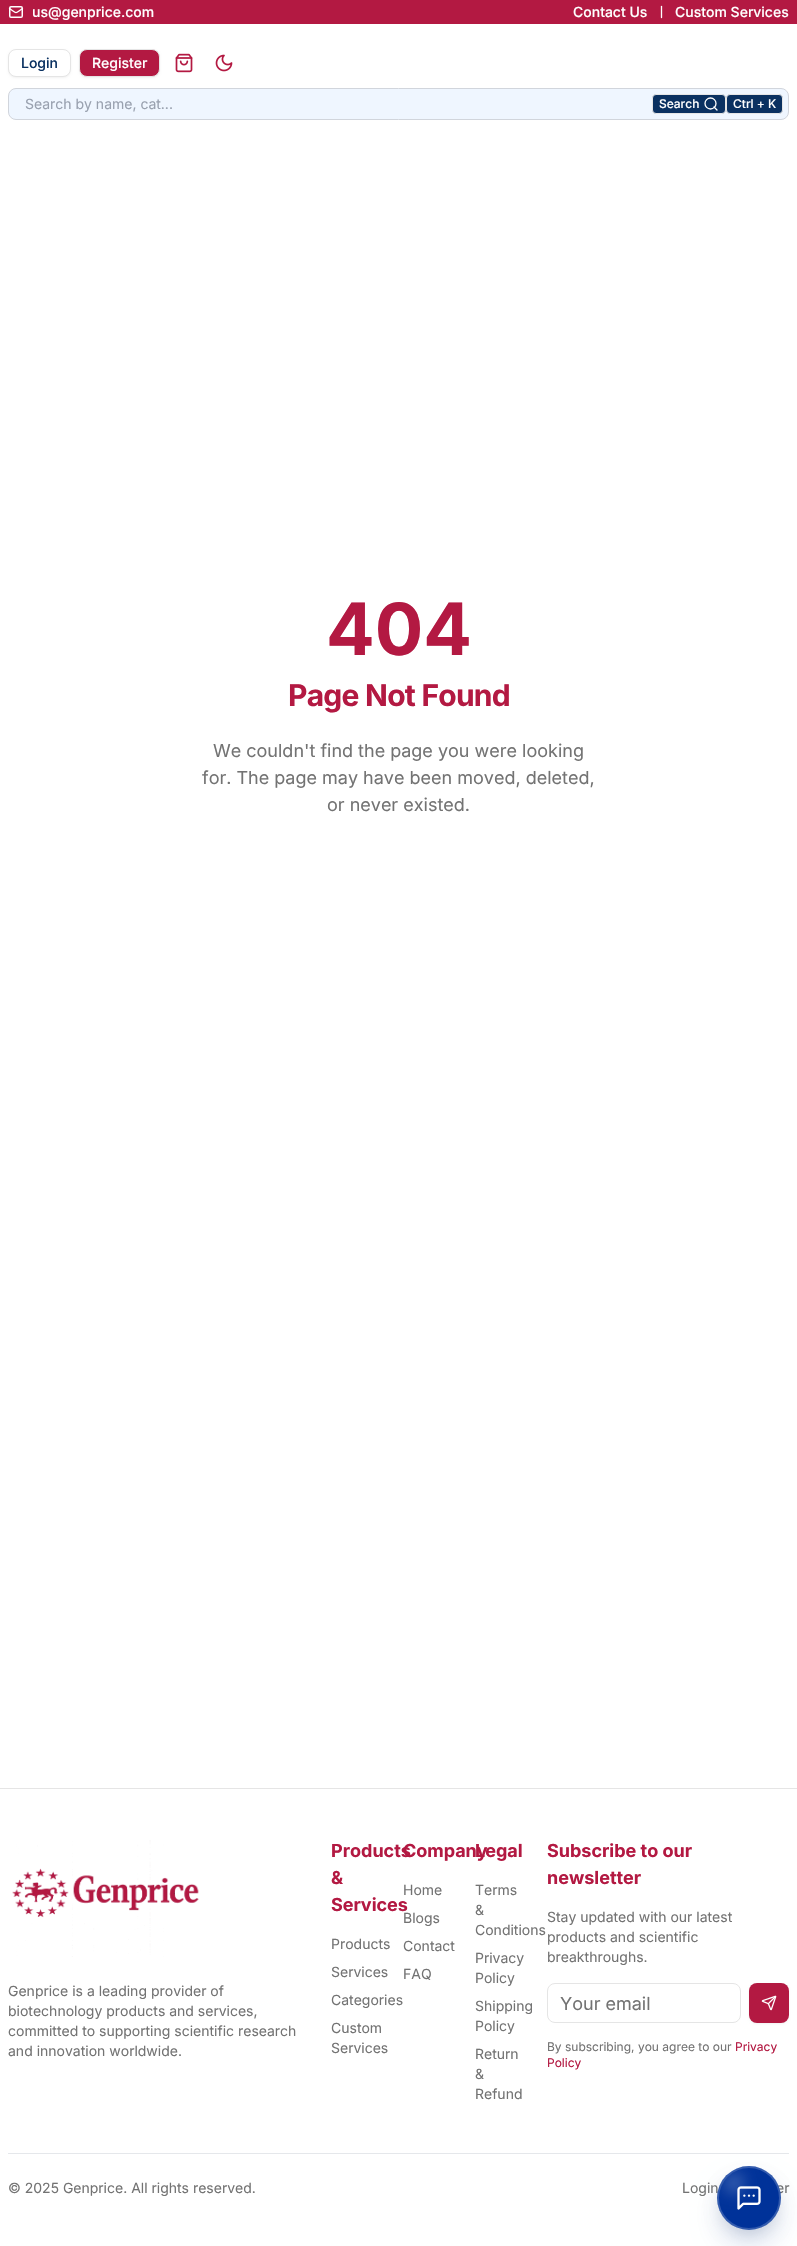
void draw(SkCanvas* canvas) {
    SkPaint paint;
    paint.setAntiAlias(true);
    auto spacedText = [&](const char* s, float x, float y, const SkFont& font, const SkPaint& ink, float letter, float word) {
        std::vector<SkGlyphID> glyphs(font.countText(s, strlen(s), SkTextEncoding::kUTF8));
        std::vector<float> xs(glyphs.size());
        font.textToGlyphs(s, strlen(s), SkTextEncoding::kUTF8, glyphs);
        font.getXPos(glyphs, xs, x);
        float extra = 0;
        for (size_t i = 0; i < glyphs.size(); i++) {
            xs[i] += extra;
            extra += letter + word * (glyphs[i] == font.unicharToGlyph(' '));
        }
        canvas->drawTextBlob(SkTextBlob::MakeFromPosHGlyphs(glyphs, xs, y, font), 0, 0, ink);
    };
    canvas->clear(0xFFFFFFFF);
    paint.setColor(0xFFB31942);
    canvas->drawRect(SkRect::MakeXYWH(0, 0, 797, 24), paint);
    paint.setStyle(SkPaint::kStroke_Style);
    paint.setStrokeWidth(1.3f);
    paint.setStrokeCap(SkPaint::kRound_Cap);
    paint.setStrokeJoin(SkPaint::kRound_Join);
    paint.setColor(0xFFFFFFFF);
    canvas->drawPath(SkPathBuilder().moveTo(22.5f, 8.5f).cubicTo(14.5f, 14, 17.5f, 14, 9.5f, 8.5f).detach(), paint);
    paint.setStrokeWidth(1.5f);
    paint.setStrokeCap(SkPaint::kButt_Cap);
    paint.setStrokeJoin(SkPaint::kMiter_Join);
    canvas->drawRoundRect(SkRect::MakeXYWH(9.75f, 6.75f, 12.5f, 10.5f), 1.25f, 1.25f, paint);
    SkFont font1(fontMgr->matchFamilyStyle("Inter", SkFontStyle(500, SkFontStyle::kNormal_Width, SkFontStyle::kUpright_Slant)), 14);
    font1.setSubpixel(true);
    paint.setStyle(SkPaint::kFill_Style);
    canvas->drawString("us@genprice.com", 32, 17, font1, paint);
    canvas->drawString("Contact Us", 573, 17, font1, paint);
    paint.setStyle(SkPaint::kStroke_Style);
    paint.setStrokeWidth(1.3f);
    paint.setStrokeCap(SkPaint::kRound_Cap);
    paint.setStrokeJoin(SkPaint::kRound_Join);
    canvas->drawPath(SkPathBuilder().moveTo(661.5f, 6.5f).lineTo(661.5f, 17.5f).detach(), paint);
    paint.setStyle(SkPaint::kFill_Style);
    canvas->drawString("Custom Services", 675, 17, font1, paint);
    paint.setColor(0x0D000000);
    paint.setMaskFilter(SkMaskFilter::MakeBlur(kNormal_SkBlurStyle, 1));
    canvas->drawRoundRect(SkRect::MakeXYWH(8, 50, 63, 28), 8, 8, paint);
    paint.setMaskFilter(nullptr);
    paint.setColor(0xFFFFFFFF);
    canvas->drawRoundRect(SkRect::MakeXYWH(8.5f, 49.5f, 62, 27), 7.5f, 7.5f, paint);
    paint.setStyle(SkPaint::kStroke_Style);
    paint.setStrokeWidth(1);
    paint.setStrokeCap(SkPaint::kButt_Cap);
    paint.setStrokeJoin(SkPaint::kMiter_Join);
    paint.setColor(0xFFE5E5E5);
    canvas->drawRoundRect(SkRect::MakeXYWH(8.5f, 49.5f, 62, 27), 7.5f, 7.5f, paint);
    paint.setStyle(SkPaint::kFill_Style);
    paint.setColor(0xFF0A3161);
    canvas->drawString("Login", 21, 68, font1, paint);
    paint.setColor(0x0D000000);
    paint.setMaskFilter(SkMaskFilter::MakeBlur(kNormal_SkBlurStyle, 1));
    canvas->drawRoundRect(SkRect::MakeXYWH(79, 50, 81, 28), 8, 8, paint);
    paint.setMaskFilter(nullptr);
    paint.setColor(0xFFB31942);
    canvas->drawRoundRect(SkRect::MakeXYWH(79.5f, 49.5f, 80, 27), 7.5f, 7.5f, paint);
    paint.setStyle(SkPaint::kStroke_Style);
    paint.setColor(0xFFE5E5E5);
    canvas->drawRoundRect(SkRect::MakeXYWH(79.5f, 49.5f, 80, 27), 7.5f, 7.5f, paint);
    paint.setStyle(SkPaint::kFill_Style);
    paint.setColor(0xFFFFFFFF);
    canvas->drawString("Register", 92, 68, font1, paint);
    canvas->drawImageRect(SkImages::DeferredFromEncodedData(SkData::MakeFromFileName("img1.png")), SkRect::MakeXYWH(175, 53, 18, 20), SkSamplingOptions());
    canvas->drawImageRect(SkImages::DeferredFromEncodedData(SkData::MakeFromFileName("img2.png")), SkRect::MakeXYWH(215, 54, 18, 18), SkSamplingOptions());
    paint.setColor(0xFFEFF6FF);
    canvas->drawRoundRect(SkRect::MakeXYWH(8.5f, 88.5f, 780, 31), 7.5f, 7.5f, paint);
    paint.setStyle(SkPaint::kStroke_Style);
    paint.setColor(0xFFD1D5DC);
    canvas->drawRoundRect(SkRect::MakeXYWH(8.5f, 88.5f, 780, 31), 7.5f, 7.5f, paint);
    SkFont font2(fontMgr->matchFamilyStyle("Inter", SkFontStyle::Normal()), 14);
    font2.setSubpixel(true);
    paint.setStyle(SkPaint::kFill_Style);
    paint.setColor(0xFF99A1AF);
    canvas->drawString("Search by name, cat...", 25, 109, font2, paint);
    paint.setColor(0xFF0A3161);
    canvas->drawRoundRect(SkRect::MakeXYWH(652.5f, 94.5f, 73, 19), 3.5f, 3.5f, paint);
    paint.setStyle(SkPaint::kStroke_Style);
    paint.setColor(0xFFE5E5E5);
    canvas->drawRoundRect(SkRect::MakeXYWH(652.5f, 94.5f, 73, 19), 3.5f, 3.5f, paint);
    SkFont font3(fontMgr->matchFamilyStyle("Inter", SkFontStyle(500, SkFontStyle::kNormal_Width, SkFontStyle::kUpright_Slant)), 12);
    font3.setSubpixel(true);
    paint.setStyle(SkPaint::kFill_Style);
    paint.setColor(0xFFFFFFFF);
    canvas->drawString("Search", 659, 108, font3, paint);
    paint.setStyle(SkPaint::kStroke_Style);
    paint.setStrokeWidth(1.3f);
    paint.setStrokeCap(SkPaint::kRound_Cap);
    paint.setStrokeJoin(SkPaint::kRound_Join);
    canvas->drawPath(SkPathBuilder().moveTo(717, 110).lineTo(714, 107).detach(), paint);
    paint.setStrokeCap(SkPaint::kButt_Cap);
    paint.setStrokeJoin(SkPaint::kMiter_Join);
    canvas->drawCircle(710.5f, 103.5f, 5.5f, paint);
    paint.setStyle(SkPaint::kFill_Style);
    paint.setColor(0xFF0A3161);
    canvas->drawRoundRect(SkRect::MakeXYWH(726.5f, 94.5f, 56, 19), 3.5f, 3.5f, paint);
    paint.setStyle(SkPaint::kStroke_Style);
    paint.setStrokeWidth(1);
    paint.setColor(0xFFE5E5E5);
    canvas->drawRoundRect(SkRect::MakeXYWH(726.5f, 94.5f, 56, 19), 3.5f, 3.5f, paint);
    paint.setStyle(SkPaint::kFill_Style);
    paint.setColor(0xFFFFFFFF);
    canvas->drawString("Ctrl + K", 733, 108, font3, paint);
    SkFont font4(fontMgr->matchFamilyStyle("Inter", SkFontStyle::Bold()), 72);
    font4.setSubpixel(true);
    paint.setColor(0xFFB31942);
    canvas->drawString("404", 326, 655, font4, paint);
    SkFont font5(fontMgr->matchFamilyStyle("Inter", SkFontStyle::Bold()), 30);
    font5.setSubpixel(true);
    spacedText("Page Not Found", 288, 706, font5, paint, -0.75f, 0);
    SkFont font6(fontMgr->matchFamilyStyle("Inter", SkFontStyle::Normal()), 18);
    font6.setSubpixel(true);
    paint.setColor(0xFF737373);
    canvas->drawString("We couldn't find the page you were looking", 213, 757, font6, paint);
    canvas->drawString("for. The page may have been moved, deleted,", 202, 784, font6, paint);
    canvas->drawString("or never existed.", 327, 811, font6, paint);
    paint.setColor(0xFFE5E5E5);
    canvas->drawRect(SkRect::MakeXYWH(0, 1788, 797, 1), paint);
    canvas->drawImageRect(SkImages::DeferredFromEncodedData(SkData::MakeFromFileName("img3.png")), SkRect::MakeXYWH(12, 1840, 187, 117), SkSamplingOptions());
    paint.setColor(0xFF737373);
    canvas->drawString("Genprice is a leading provider of", 8, 1996, font2, paint);
    canvas->drawString("biotechnology products and services,", 8, 2016, font2, paint);
    canvas->drawString("committed to supporting scientific research", 8, 2036, font2, paint);
    canvas->drawString("and innovation worldwide.", 8, 2056, font2, paint);
    SkFont font7(fontMgr->matchFamilyStyle("Inter", SkFontStyle::Bold()), 18);
    font7.setSubpixel(true);
    paint.setColor(0xFFB31942);
    canvas->drawString("Products", 331, 1857, font7, paint);
    canvas->drawString("&", 331, 1884, font7, paint);
    canvas->drawString("Services", 331, 1911, font7, paint);
    paint.setColor(0xFF737373);
    canvas->drawString("Products", 331, 1949, font2, paint);
    canvas->drawString("Services", 331, 1977, font2, paint);
    canvas->drawString("Categories", 331, 2005, font2, paint);
    canvas->drawString("Custom", 331, 2033, font2, paint);
    canvas->drawString("Services", 331, 2053, font2, paint);
    paint.setColor(0xFFB31942);
    canvas->drawString("Company", 403, 1857, font7, paint);
    paint.setColor(0xFF737373);
    canvas->drawString("Home", 403, 1895, font2, paint);
    canvas->drawString("Blogs", 403, 1923, font2, paint);
    canvas->drawString("Contact", 403, 1951, font2, paint);
    canvas->drawString("FAQ", 403, 1979, font2, paint);
    paint.setColor(0xFFB31942);
    canvas->drawString("Legal", 475, 1857, font7, paint);
    paint.setColor(0xFF737373);
    canvas->drawString("Terms", 475, 1895, font2, paint);
    canvas->drawString("&", 475, 1915, font2, paint);
    canvas->drawString("Conditions", 475, 1935, font2, paint);
    canvas->drawString("Privacy", 475, 1963, font2, paint);
    canvas->drawString("Policy", 475, 1983, font2, paint);
    canvas->drawString("Shipping", 475, 2011, font2, paint);
    canvas->drawString("Policy", 475, 2031, font2, paint);
    canvas->drawString("Return", 475, 2059, font2, paint);
    canvas->drawString("&", 475, 2079, font2, paint);
    canvas->drawString("Refund", 475, 2099, font2, paint);
    paint.setColor(0xFFB31942);
    canvas->drawString("Subscribe to our", 547, 1857, font7, paint);
    canvas->drawString("newsletter", 547, 1884, font7, paint);
    paint.setColor(0xFF737373);
    canvas->drawString("Stay updated with our latest", 547, 1922, font2, paint);
    canvas->drawString("products and scientific", 547, 1942, font2, paint);
    canvas->drawString("breakthroughs.", 547, 1962, font2, paint);
    paint.setStyle(SkPaint::kStroke_Style);
    paint.setColor(0xFFE5E5E5);
    canvas->drawRoundRect(SkRect::MakeXYWH(547.5f, 1983.5f, 193, 39), 7.5f, 7.5f, paint);
    paint.setStyle(SkPaint::kFill_Style);
    paint.setColor(0xFF737373);
    canvas->drawString("Your email", 560, 2010, font6, paint);
    paint.setColor(0x0D000000);
    paint.setMaskFilter(SkMaskFilter::MakeBlur(kNormal_SkBlurStyle, 1));
    canvas->drawRoundRect(SkRect::MakeXYWH(749, 1984, 40, 40), 8, 8, paint);
    paint.setMaskFilter(nullptr);
    paint.setColor(0xFFB31942);
    canvas->drawRoundRect(SkRect::MakeXYWH(749, 1983, 40, 40), 8, 8, paint);
    canvas->drawImageRect(SkImages::DeferredFromEncodedData(SkData::MakeFromFileName("img4.png")), SkRect::MakeXYWH(761, 1995, 16, 16), SkSamplingOptions());
    SkFont font8(fontMgr->matchFamilyStyle("Inter", SkFontStyle::Normal()), 12);
    font8.setSubpixel(true);
    paint.setColor(0xFF737373);
    canvas->drawString("By subscribing, you agree to our", 547, 2051, font8, paint);
    paint.setColor(0xFFB31942);
    canvas->drawString("Privacy", 735, 2051, font8, paint);
    canvas->drawString("Policy", 547, 2067, font8, paint);
    paint.setColor(0xFFE5E7EB);
    canvas->drawRect(SkRect::MakeXYWH(8, 2153, 781, 1), paint);
    paint.setColor(0xFF737373);
    canvas->drawString("© 2025 Genprice. All rights reserved.", 8, 2193, font2, paint);
    canvas->drawString("Login", 682, 2193, font2, paint);
    canvas->drawString("er", 776, 2193, font2, paint);
    paint.setColor(0x1A000000);
    paint.setMaskFilter(SkMaskFilter::MakeBlur(kNormal_SkBlurStyle, 8));
    canvas->drawRoundRect(SkRect::MakeXYWH(721, 2178, 56, 56), 28, 28, paint);
    paint.setMaskFilter(nullptr);
    paint.setColor(0x40003299);
    paint.setMaskFilter(SkMaskFilter::MakeBlur(kNormal_SkBlurStyle, 16));
    canvas->drawRoundRect(SkRect::MakeXYWH(725, 2190, 48, 48), 24, 24, paint);
    paint.setMaskFilter(nullptr);
    paint.setColor(0xFF003299);
    canvas->drawCircle(749, 2198, 32, paint);
    paint.setStyle(SkPaint::kStroke_Style);
    paint.setStrokeWidth(2);
    paint.setColor(0x33FFFFFF);
    canvas->drawCircle(749, 2198, 31, paint);
    canvas->save();
    canvas->clipPath(SkPathBuilder().moveTo(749, 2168).cubicTo(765.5f, 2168, 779, 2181.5f, 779, 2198).cubicTo(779, 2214.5f, 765.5f, 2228, 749, 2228).cubicTo(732.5f, 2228, 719, 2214.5f, 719, 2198).cubicTo(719, 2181.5f, 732.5f, 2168, 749, 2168).close().detach(), true);
    paint.setStyle(SkPaint::kFill_Style);
    paint.setColor(0x4DFFFFFF);
    paint.setMaskFilter(SkMaskFilter::MakeBlur(kNormal_SkBlurStyle, 8));
    canvas->drawRoundRect(SkRect::MakeXYWH(725, 2174, 18, 18), 9, 9, paint);
    paint.setMaskFilter(nullptr);
    canvas->restore();
    canvas->drawImageRect(SkImages::DeferredFromEncodedData(SkData::MakeFromFileName("img5.png")), SkRect::MakeXYWH(737, 2186, 24, 24), SkSamplingOptions());
}
